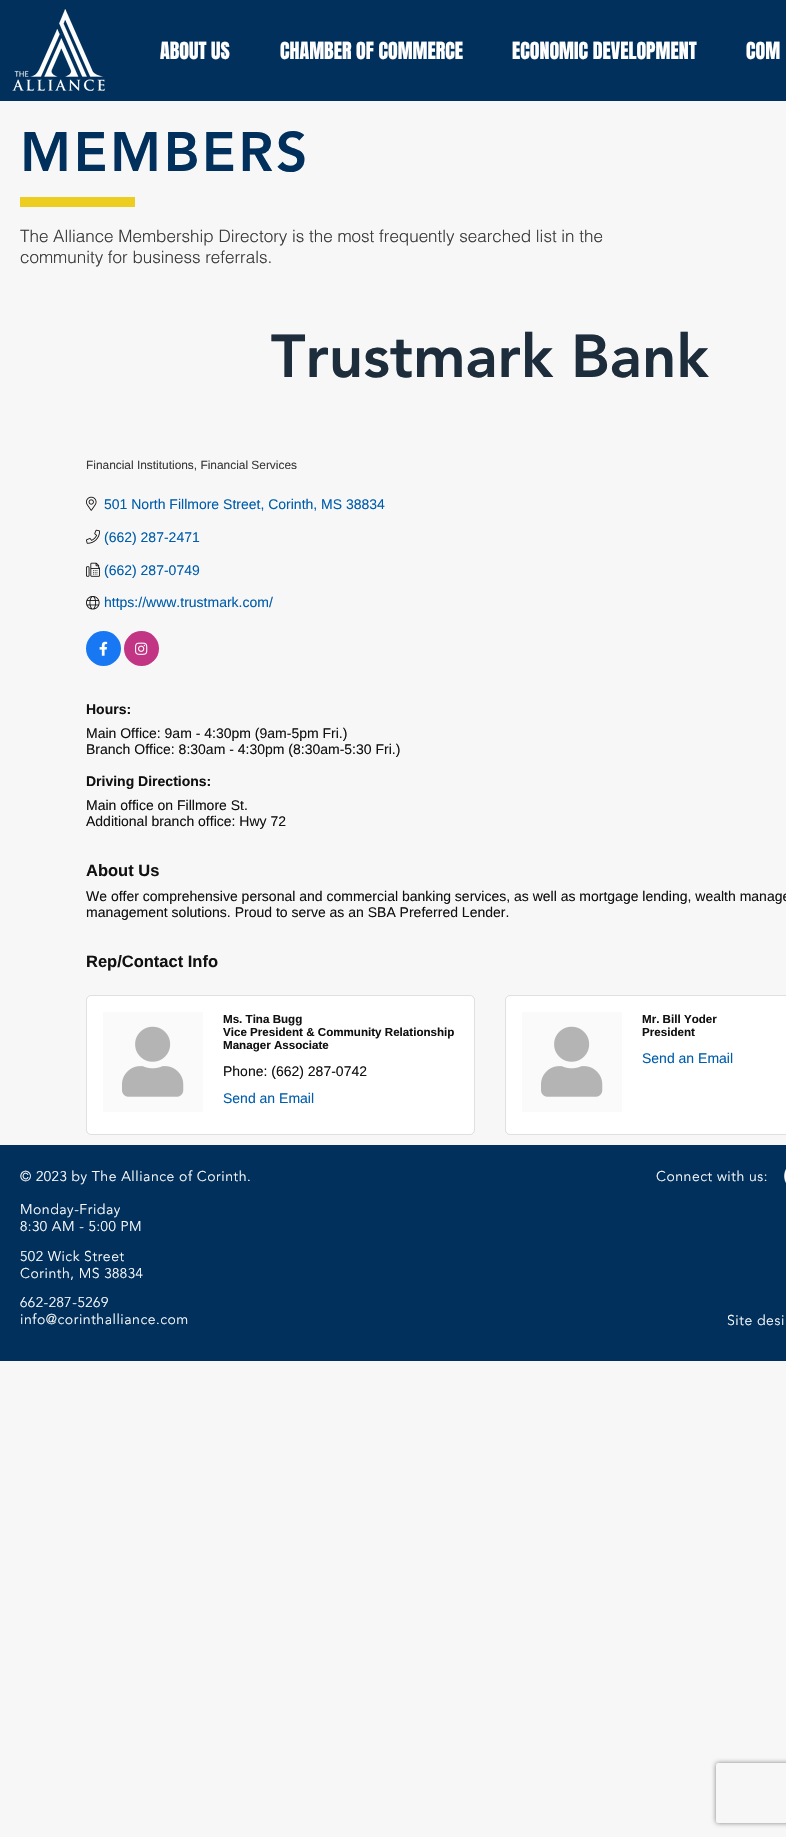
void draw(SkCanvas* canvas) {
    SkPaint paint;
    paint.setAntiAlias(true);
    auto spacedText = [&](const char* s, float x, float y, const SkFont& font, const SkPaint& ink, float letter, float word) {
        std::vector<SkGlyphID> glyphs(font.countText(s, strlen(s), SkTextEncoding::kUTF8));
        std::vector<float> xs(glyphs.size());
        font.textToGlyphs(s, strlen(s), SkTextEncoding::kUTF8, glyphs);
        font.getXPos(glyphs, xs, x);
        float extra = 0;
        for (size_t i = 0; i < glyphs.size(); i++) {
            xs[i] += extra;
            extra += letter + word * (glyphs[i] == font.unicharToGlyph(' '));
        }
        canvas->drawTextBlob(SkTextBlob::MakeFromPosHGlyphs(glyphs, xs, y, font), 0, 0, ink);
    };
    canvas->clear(0xFFF7F7F7);
    paint.setColor(0xFF00305B);
    canvas->drawRect(SkRect::MakeXYWH(0, 0, 786, 101), paint);
    canvas->drawImageRect(SkImages::DeferredFromEncodedData(SkData::MakeFromFileName("img1.png")), SkRect::MakeXYWH(12, 9, 93, 82), SkSamplingOptions());
    SkFont font1(fontMgr->matchFamilyStyle("Anton", SkFontStyle::Normal()), 20);
    font1.setSubpixel(true);
    paint.setColor(0xFFFFFFFF);
    canvas->drawString("ABOUT US", 160, 59, font1, paint);
    canvas->drawString("CHAMBER OF COMMERCE", 280, 59, font1, paint);
    canvas->drawString("ECONOMIC DEVELOPMENT", 512, 59, font1, paint);
    canvas->drawString("COM", 746, 59, font1, paint);
    SkFont font2(fontMgr->matchFamilyStyle("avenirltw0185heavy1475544", SkFontStyle(900, SkFontStyle::kNormal_Width, SkFontStyle::kUpright_Slant)), 55);
    font2.setSubpixel(true);
    paint.setColor(0xFF00305B);
    spacedText("MEMBERS", 20, 171, font2, paint, 2.75f, 0);
    paint.setColor(0xFFEDCD1F);
    canvas->drawRect(SkRect::MakeXYWH(20, 197, 115, 10), paint);
    SkFont font3(fontMgr->matchFamilyStyle("helvetica", SkFontStyle(300, SkFontStyle::kNormal_Width, SkFontStyle::kUpright_Slant)), 17);
    font3.setSubpixel(true);
    paint.setColor(0xFF3B3A3A);
    canvas->drawString("The Alliance Membership Directory is the most frequently searched list in the", 20, 242, font3, paint);
    canvas->drawString("community for business referrals.", 20, 263, font3, paint);
    SkFont font4(fontMgr->matchFamilyStyle("avenirltw0185heavy1475544", SkFontStyle(900, SkFontStyle::kNormal_Width, SkFontStyle::kUpright_Slant)), 60);
    font4.setSubpixel(true);
    paint.setColor(0xFF1E2D3B);
    canvas->drawString("Trustmark Bank", 271, 377, font4, paint);
    SkFont font5(fontMgr->matchFamilyStyle("Liberation Sans", SkFontStyle::Normal()), 11.9f);
    font5.setSubpixel(true);
    paint.setColor(0xFF3B3A3A);
    canvas->drawString("Financial Institutions, Financial Services", 86, 469, font5, paint);
    canvas->drawImageRect(SkImages::DeferredFromEncodedData(SkData::MakeFromFileName("img2.png")), SkRect::MakeXYWH(86, 496, 11, 15), SkSamplingOptions());
    SkFont font6(fontMgr->matchFamilyStyle("Liberation Sans", SkFontStyle::Normal()), 14);
    font6.setSubpixel(true);
    paint.setColor(0xFF005DAB);
    canvas->drawString("501 North Fillmore Street, Corinth, MS 38834", 104, 509, font6, paint);
    canvas->drawImageRect(SkImages::DeferredFromEncodedData(SkData::MakeFromFileName("img3.png")), SkRect::MakeXYWH(86, 529, 14, 15), SkSamplingOptions());
    canvas->drawString("(662) 287-2471", 104, 542, font6, paint);
    canvas->drawImageRect(SkImages::DeferredFromEncodedData(SkData::MakeFromFileName("img4.png")), SkRect::MakeXYWH(86, 562, 14, 15), SkSamplingOptions());
    canvas->drawString("(662) 287-0749", 104, 575, font6, paint);
    canvas->drawImageRect(SkImages::DeferredFromEncodedData(SkData::MakeFromFileName("img5.png")), SkRect::MakeXYWH(86, 596, 14, 14), SkSamplingOptions());
    canvas->drawString("https://www.trustmark.com/", 104, 607, font6, paint);
    paint.setColor(0xFF1877F2);
    canvas->drawCircle(103.5f, 648.5f, 17.5f, paint);
    canvas->drawImageRect(SkImages::DeferredFromEncodedData(SkData::MakeFromFileName("img6.png")), SkRect::MakeXYWH(99, 641, 9, 15), SkSamplingOptions());
    paint.setColor(0xFFC13584);
    canvas->drawCircle(141.5f, 648.5f, 17.5f, paint);
    canvas->drawImageRect(SkImages::DeferredFromEncodedData(SkData::MakeFromFileName("img7.png")), SkRect::MakeXYWH(135, 642, 13, 13), SkSamplingOptions());
    SkFont font7(fontMgr->matchFamilyStyle("Liberation Sans", SkFontStyle::Bold()), 14);
    font7.setSubpixel(true);
    paint.setColor(0xFF111111);
    canvas->drawString("Hours:", 86, 714, font7, paint);
    canvas->drawString("Main Office: 9am - 4:30pm (9am-5pm Fri.)", 86, 738, font6, paint);
    canvas->drawString("Branch Office: 8:30am - 4:30pm (8:30am-5:30 Fri.)", 86, 754, font6, paint);
    canvas->drawString("Driving Directions:", 86, 786, font7, paint);
    canvas->drawString("Main office on Fillmore St.", 86, 810, font6, paint);
    canvas->drawString("Additional branch office: Hwy 72", 86, 826, font6, paint);
    SkFont font8(fontMgr->matchFamilyStyle("Liberation Sans", SkFontStyle::Bold()), 16.5f);
    font8.setSubpixel(true);
    canvas->drawString("About Us", 86, 876, font8, paint);
    canvas->drawString("We offer comprehensive personal and commercial banking services, as well as mortgage lending, wealth manage", 86, 901, font6, paint);
    canvas->drawString("management solutions. Proud to serve as an SBA Preferred Lender.", 86, 917, font6, paint);
    canvas->drawString("Rep/Contact Info", 86, 967, font8, paint);
    paint.setColor(0xFFFFFFFF);
    canvas->drawRoundRect(SkRect::MakeXYWH(86, 995, 389, 140), 5, 5, paint);
    paint.setStyle(SkPaint::kStroke_Style);
    paint.setStrokeWidth(1);
    paint.setColor(0x1F000000);
    canvas->drawRoundRect(SkRect::MakeXYWH(86.5f, 995.5f, 388, 139), 4.5f, 4.5f, paint);
    paint.setStyle(SkPaint::kFill_Style);
    paint.setColor(0xFFFAFAFA);
    canvas->drawRect(SkRect::MakeXYWH(103, 1012, 100, 100), paint);
    canvas->drawImageRect(SkImages::DeferredFromEncodedData(SkData::MakeFromFileName("img8.png")), SkRect::MakeXYWH(122, 1026, 62, 71), SkSamplingOptions());
    SkFont font9(fontMgr->matchFamilyStyle("Liberation Sans", SkFontStyle::Bold()), 11.6f);
    font9.setSubpixel(true);
    paint.setColor(0xFF111111);
    canvas->drawString("Ms. Tina Bugg", 223, 1023, font9, paint);
    canvas->drawString("Vice President & Community Relationship", 223, 1036, font9, paint);
    canvas->drawString("Manager Associate", 223, 1049, font9, paint);
    canvas->drawString("Phone: (662) 287-0742", 223, 1076, font6, paint);
    paint.setColor(0xFF005DAB);
    canvas->drawString("Send an Email", 223, 1103, font6, paint);
    paint.setColor(0xFFFFFFFF);
    canvas->drawRoundRect(SkRect::MakeXYWH(505, 995, 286, 140), 5, 5, paint);
    paint.setStyle(SkPaint::kStroke_Style);
    paint.setColor(0x1F000000);
    canvas->drawRoundRect(SkRect::MakeXYWH(505.5f, 995.5f, 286, 139), 4.5f, 4.5f, paint);
    paint.setStyle(SkPaint::kFill_Style);
    paint.setColor(0xFFFAFAFA);
    canvas->drawRect(SkRect::MakeXYWH(522, 1012, 100, 100), paint);
    canvas->drawImageRect(SkImages::DeferredFromEncodedData(SkData::MakeFromFileName("img8.png")), SkRect::MakeXYWH(541, 1026, 62, 71), SkSamplingOptions());
    paint.setColor(0xFF111111);
    canvas->drawString("Mr. Bill Yoder", 642, 1023, font9, paint);
    canvas->drawString("President", 642, 1036, font9, paint);
    paint.setColor(0xFF005DAB);
    canvas->drawString("Send an Email", 642, 1063, font6, paint);
    paint.setColor(0xFF00305B);
    canvas->drawRect(SkRect::MakeXYWH(0, 1145, 786, 216), paint);
    SkFont font10(fontMgr->matchFamilyStyle("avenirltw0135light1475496", SkFontStyle(300, SkFontStyle::kNormal_Width, SkFontStyle::kUpright_Slant)), 14);
    font10.setSubpixel(true);
    paint.setColor(0xFFFFFFFF);
    spacedText("© 2023 by The Alliance of Corinth.", 20, 1181, font10, paint, 0.55f, 0);
    spacedText("Connect with us:", 656, 1181, font10, paint, 0.55f, 0);
    canvas->drawImageRect(SkImages::DeferredFromEncodedData(SkData::MakeFromFileName("img9.png")), SkRect::MakeXYWH(784, 1169, 2, 14), SkSamplingOptions());
    spacedText("Monday-Friday", 20, 1214, font10, paint, 0.55f, 0);
    spacedText("8:30 AM - 5:00 PM", 20, 1231, font10, paint, 0.55f, 0);
    spacedText("502 Wick Street", 20, 1261, font10, paint, 0.55f, 0);
    spacedText("Corinth, MS 38834", 20, 1278, font10, paint, 0.55f, 0);
    spacedText("662-287-5269", 20, 1307, font10, paint, 0.55f, 0);
    spacedText("info@corinthalliance.com", 20, 1324, font10, paint, 0.55f, 0);
    spacedText("Site desi", 727, 1325, font10, paint, 0.55f, 0);
    canvas->save();
    canvas->clipPath(SkPathBuilder(SkPathFillType::kEvenOdd).moveTo(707, 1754).lineTo(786, 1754).lineTo(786, 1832).lineTo(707, 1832).close().moveTo(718, 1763).lineTo(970, 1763).cubicTo(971, 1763, 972, 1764, 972, 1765).lineTo(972, 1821).cubicTo(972, 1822, 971, 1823, 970, 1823).lineTo(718, 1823).cubicTo(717, 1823, 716, 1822, 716, 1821).lineTo(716, 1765).cubicTo(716, 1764, 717, 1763, 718, 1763).close().detach(), true);
    paint.setColor(0xFF808080);
    paint.setMaskFilter(SkMaskFilter::MakeBlur(kNormal_SkBlurStyle, 2.5f));
    canvas->drawRoundRect(SkRect::MakeXYWH(716, 1763, 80, 60), 2, 2, paint);
    paint.setMaskFilter(nullptr);
    canvas->restore();
}
